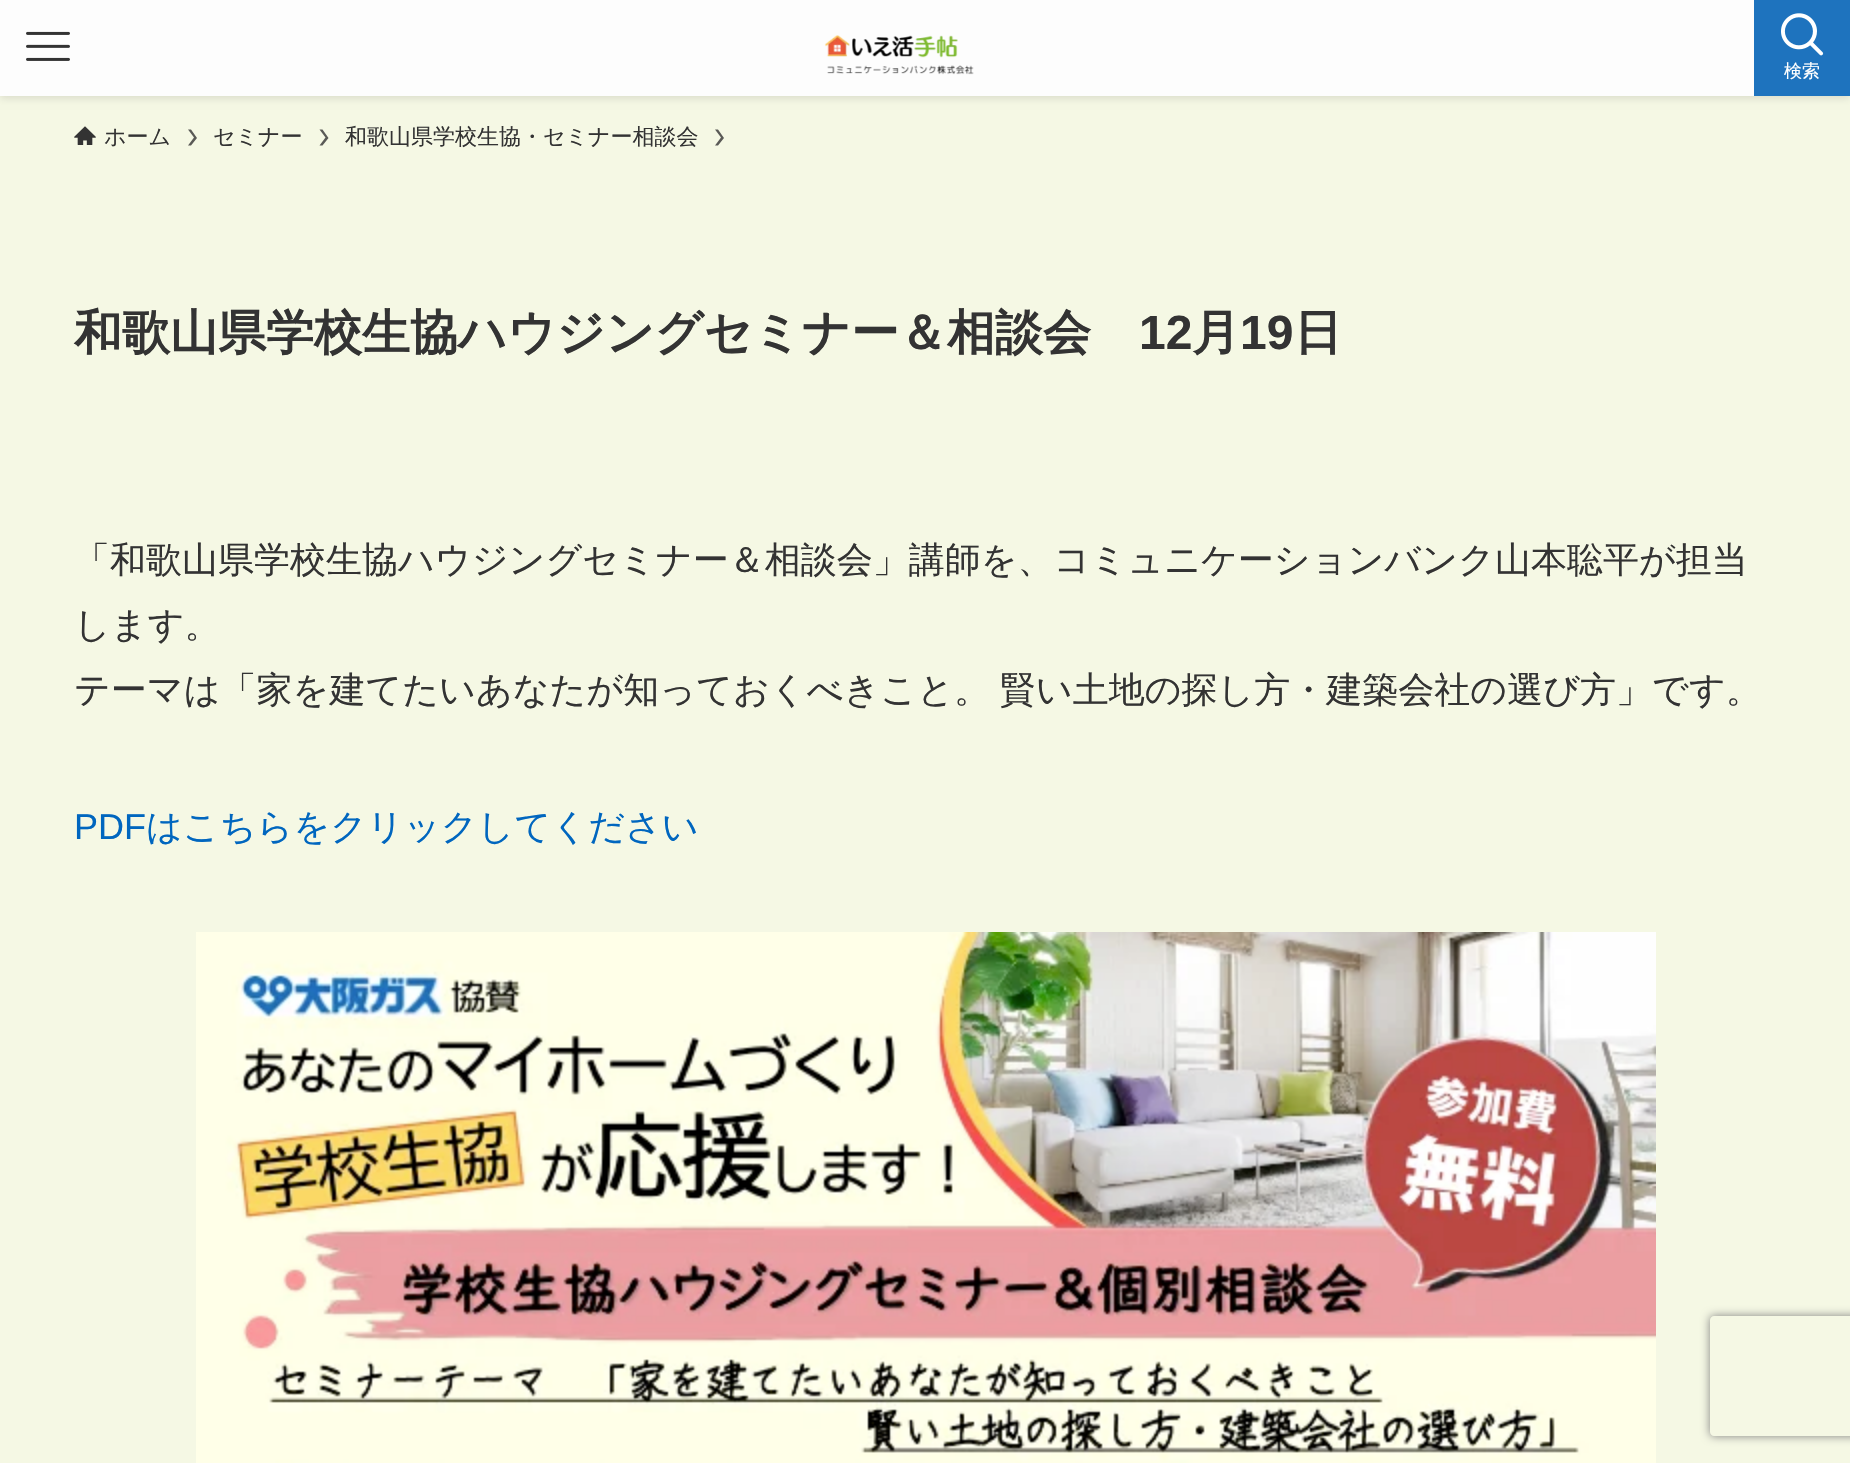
void draw(SkCanvas* canvas) {
    SkPaint paint;
    paint.setAntiAlias(true);
    auto spacedText = [&](const char* s, float x, float y, const SkFont& font, const SkPaint& ink, float letter, float word) {
        std::vector<SkGlyphID> glyphs(font.countText(s, strlen(s), SkTextEncoding::kUTF8));
        std::vector<float> xs(glyphs.size());
        font.textToGlyphs(s, strlen(s), SkTextEncoding::kUTF8, glyphs);
        font.getXPos(glyphs, xs, x);
        float extra = 0;
        for (size_t i = 0; i < glyphs.size(); i++) {
            xs[i] += extra;
            extra += letter + word * (glyphs[i] == font.unicharToGlyph(' '));
        }
        canvas->drawTextBlob(SkTextBlob::MakeFromPosHGlyphs(glyphs, xs, y, font), 0, 0, ink);
    };
    canvas->clear(0xFFF5F8E4);
    paint.setColor(0x1F000000);
    paint.setMaskFilter(SkMaskFilter::MakeBlur(kNormal_SkBlurStyle, 4));
    canvas->drawRect(SkRect::MakeXYWH(0, 2, 1850, 96), paint);
    paint.setMaskFilter(nullptr);
    paint.setColor(0xFFFDFDFD);
    canvas->drawRect(SkRect::MakeXYWH(0, 0, 1754, 96), paint);
    canvas->drawImageRect(SkImages::DeferredFromEncodedData(SkData::MakeFromFileName("img1.png")), SkRect::MakeXYWH(26, 31, 44, 30), SkSamplingOptions());
    canvas->drawImageRect(SkImages::DeferredFromEncodedData(SkData::MakeFromFileName("img2.png")), SkRect::MakeXYWH(824, 35, 150, 40), SkSamplingOptions());
    paint.setColor(0xFF1E73BE);
    canvas->drawRect(SkRect::MakeXYWH(1754, 0, 96, 96), paint);
    canvas->drawImageRect(SkImages::DeferredFromEncodedData(SkData::MakeFromFileName("img3.png")), SkRect::MakeXYWH(1781, 13, 43, 43), SkSamplingOptions());
    SkFont font1(fontMgr->matchFamilyStyle("WenQuanYi Zen Hei", SkFontStyle(500, SkFontStyle::kNormal_Width, SkFontStyle::kUpright_Slant)), 18);
    font1.setSubpixel(true);
    paint.setColor(0xFFFFFFFF);
    canvas->drawString("検索", 1784, 77, font1, paint);
    canvas->drawImageRect(SkImages::DeferredFromEncodedData(SkData::MakeFromFileName("img4.png")), SkRect::MakeXYWH(74, 126, 22, 19), SkSamplingOptions());
    SkFont font2(fontMgr->matchFamilyStyle("WenQuanYi Zen Hei", SkFontStyle(500, SkFontStyle::kNormal_Width, SkFontStyle::kUpright_Slant)), 22);
    font2.setSubpixel(true);
    paint.setColor(0xFF333333);
    canvas->drawString("ホーム", 104, 144, font2, paint);
    paint.setColor(0xFF5A5A56);
    canvas->drawPath(SkPathBuilder().moveTo(191, 129.5f).lineTo(188, 129.5f).lineTo(194, 137.5f).lineTo(188, 145.5f).lineTo(191, 145.5f).lineTo(197, 138).close().detach(), paint);
    paint.setColor(0xFF333333);
    canvas->drawString("セミナー", 213, 144, font2, paint);
    paint.setColor(0xFF5A5A56);
    canvas->drawPath(SkPathBuilder().moveTo(322.5f, 129.5f).lineTo(319.5f, 129.5f).lineTo(325.5f, 137.5f).lineTo(319.5f, 145.5f).lineTo(322.5f, 145.5f).lineTo(328.5f, 138).close().detach(), paint);
    paint.setColor(0xFF333333);
    canvas->drawString("和歌山県学校生協・セミナー相談会", 345, 144, font2, paint);
    paint.setColor(0xFF5A5A56);
    canvas->drawPath(SkPathBuilder().moveTo(718, 129.5f).lineTo(715, 129.5f).lineTo(721, 137.5f).lineTo(715, 145.5f).lineTo(718, 145.5f).lineTo(724, 138).close().detach(), paint);
    SkFont font3(fontMgr->matchFamilyStyle("WenQuanYi Zen Hei", SkFontStyle::Bold()), 48);
    font3.setSubpixel(true);
    paint.setColor(0xFF333333);
    canvas->drawString("和歌山県学校生協ハウジングセミナー＆相談会", 74, 349, font3, paint);
    SkFont font4(fontMgr->matchFamilyStyle("Liberation Sans", SkFontStyle::Bold()), 48);
    font4.setSubpixel(true);
    canvas->drawString("12", 1139, 349, font4, paint);
    canvas->drawString("月", 1192, 349, font3, paint);
    canvas->drawString("19", 1240, 349, font4, paint);
    canvas->drawString("日", 1294, 349, font3, paint);
    SkFont font5(fontMgr->matchFamilyStyle("WenQuanYi Zen Hei", SkFontStyle(500, SkFontStyle::kNormal_Width, SkFontStyle::kUpright_Slant)), 36);
    font5.setSubpixel(true);
    canvas->drawString("「和歌山県学校生協ハウジングセミナー＆相談会」講師を、コミュニケーションバンク山本聡平が担当", 74, 572, font5, paint);
    canvas->drawString("します。", 74, 637, font5, paint);
    spacedText("テーマは「家を建てたいあなたが知っておくべきこと。 賢い土地の探し方・建築会社の選び方」です。", 74, 702, font5, paint, 0, -1);
    SkFont font6(fontMgr->matchFamilyStyle("Liberation Sans", SkFontStyle::Normal()), 36);
    font6.setSubpixel(true);
    paint.setColor(0xFF0066BF);
    canvas->drawString("PDF", 74, 839, font6, paint);
    canvas->drawString("はこちらをクリックしてください", 146, 839, font5, paint);
    canvas->drawImageRect(SkImages::DeferredFromEncodedData(SkData::MakeFromFileName("img5.png")), SkRect::MakeXYWH(196, 932, 1460, 531), SkSamplingOptions());
    canvas->save();
    canvas->clipPath(SkPathBuilder(SkPathFillType::kEvenOdd).moveTo(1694, 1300).lineTo(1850, 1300).lineTo(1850, 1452).lineTo(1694, 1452).close().moveTo(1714, 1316).lineTo(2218, 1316).cubicTo(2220, 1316, 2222, 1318, 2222, 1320).lineTo(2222, 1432).cubicTo(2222, 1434, 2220, 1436, 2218, 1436).lineTo(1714, 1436).cubicTo(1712, 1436, 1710, 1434, 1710, 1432).lineTo(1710, 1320).cubicTo(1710, 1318, 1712, 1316, 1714, 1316).close().detach(), true);
    paint.setColor(0xFF808080);
    paint.setMaskFilter(SkMaskFilter::MakeBlur(kNormal_SkBlurStyle, 5));
    canvas->drawRoundRect(SkRect::MakeXYWH(1710, 1316, 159, 120), 4, 4, paint);
    paint.setMaskFilter(nullptr);
    canvas->restore();
}
